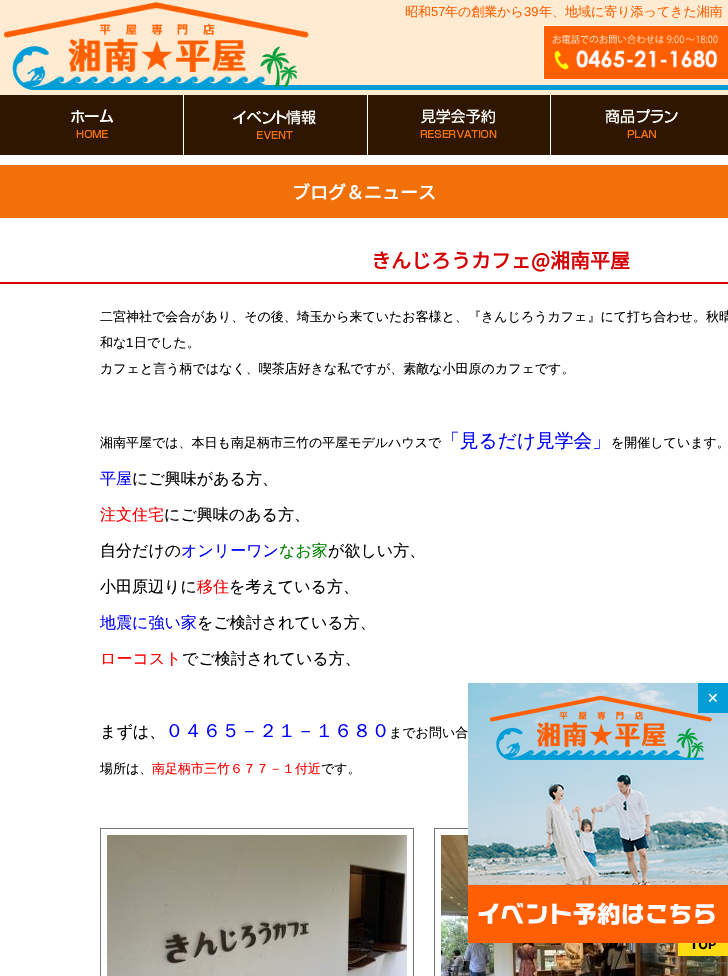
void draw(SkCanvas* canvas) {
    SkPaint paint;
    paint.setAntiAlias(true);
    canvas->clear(0xFFFFFFFF);
    paint.setColor(0xFFFFEBD2);
    canvas->drawRect(SkRect::MakeXYWH(0, 0, 728, 95), paint);
    paint.setColor(0xFF009DD7);
    canvas->drawRect(SkRect::MakeXYWH(264, 85, 464, 5), paint);
    canvas->drawImageRect(SkImages::DeferredFromEncodedData(SkData::MakeFromFileName("img1.png")), SkRect::MakeXYWH(4, 2, 305, 88), SkSamplingOptions());
    SkFont font1(fontMgr->matchFamilyStyle("WenQuanYi Zen Hei", SkFontStyle(500, SkFontStyle::kNormal_Width, SkFontStyle::kUpright_Slant)), 13);
    font1.setSubpixel(true);
    paint.setColor(0xFFFF5F00);
    canvas->drawString("昭和", 405, 16, font1, paint);
    SkFont font2(fontMgr->matchFamilyStyle("Liberation Sans", SkFontStyle::Normal()), 13);
    font2.setSubpixel(true);
    canvas->drawString("57", 431, 16, font2, paint);
    canvas->drawString("年の創業から", 445, 16, font1, paint);
    canvas->drawString("39", 524, 16, font2, paint);
    canvas->drawString("年、地域に寄り添ってきた湘南", 539, 16, font1, paint);
    canvas->drawImageRect(SkImages::DeferredFromEncodedData(SkData::MakeFromFileName("img2.png")), SkRect::MakeXYWH(543, 25, 185, 55), SkSamplingOptions());
    paint.setColor(0xFF2F1601);
    canvas->drawRect(SkRect::MakeXYWH(0, 95, 728, 60), paint);
    canvas->drawImageRect(SkImages::DeferredFromEncodedData(SkData::MakeFromFileName("img3.png")), SkRect::MakeXYWH(71, 109, 42, 29), SkSamplingOptions());
    paint.setColor(0xFFFFFFFF);
    canvas->drawRect(SkRect::MakeXYWH(183, 95, 1, 60), paint);
    canvas->drawImageRect(SkImages::DeferredFromEncodedData(SkData::MakeFromFileName("img4.png")), SkRect::MakeXYWH(233, 110, 83, 29), SkSamplingOptions());
    canvas->drawRect(SkRect::MakeXYWH(367, 95, 1, 60), paint);
    canvas->drawImageRect(SkImages::DeferredFromEncodedData(SkData::MakeFromFileName("img5.png")), SkRect::MakeXYWH(420, 109, 77, 29), SkSamplingOptions());
    canvas->drawRect(SkRect::MakeXYWH(550, 95, 1, 60), paint);
    canvas->drawImageRect(SkImages::DeferredFromEncodedData(SkData::MakeFromFileName("img6.png")), SkRect::MakeXYWH(605, 109, 73, 29), SkSamplingOptions());
    paint.setColor(0xFFF17008);
    canvas->drawRect(SkRect::MakeXYWH(0, 165, 728, 53), paint);
    SkFont font3(fontMgr->matchFamilyStyle("Noto Sans JP", SkFontStyle::Bold()), 18);
    font3.setSubpixel(true);
    paint.setColor(0xFFFFFFFF);
    canvas->drawString("ブログ＆ニュース", 292, 199, font3, paint);
    paint.setColor(0xFFD50003);
    canvas->drawRect(SkRect::MakeXYWH(0, 282, 728, 2), paint);
    SkFont font4(fontMgr->matchFamilyStyle("Noto Sans JP", SkFontStyle::Bold()), 20);
    font4.setSubpixel(true);
    canvas->drawString("きんじろうカフェ@湘南平屋", 371, 268, font4, paint);
    paint.setColor(0xFF000000);
    canvas->drawString("二宮神社で会合があり、その後、埼玉から来ていたお客様と、『きんじろうカフェ』にて打ち合わせ。秋晴", 100, 321, font1, paint);
    canvas->drawString("和な", 100, 347, font1, paint);
    canvas->drawString("1", 126, 347, font2, paint);
    canvas->drawString("日でした。", 134, 347, font1, paint);
    canvas->drawString("カフェと言う柄ではなく、喫茶店好きな私ですが、素敵な小田原のカフェです。", 100, 373, font1, paint);
    canvas->drawString("湘南平屋では、本日も南足柄市三竹の平屋モデルハウスで", 100, 447, font1, paint);
    SkFont font5(fontMgr->matchFamilyStyle("WenQuanYi Zen Hei", SkFontStyle(500, SkFontStyle::kNormal_Width, SkFontStyle::kUpright_Slant)), 18.75f);
    font5.setSubpixel(true);
    paint.setColor(0xFF0000FF);
    canvas->drawString("「見るだけ見学会」", 441, 447, font5, paint);
    paint.setColor(0xFF000000);
    canvas->drawString("を開催しています。", 611, 447, font1, paint);
    SkFont font6(fontMgr->matchFamilyStyle("WenQuanYi Zen Hei", SkFontStyle(500, SkFontStyle::kNormal_Width, SkFontStyle::kUpright_Slant)), 16);
    font6.setSubpixel(true);
    paint.setColor(0xFF0000FF);
    canvas->drawString("平屋", 100, 484, font6, paint);
    paint.setColor(0xFF000000);
    canvas->drawString("にご興味がある方、", 132, 484, font6, paint);
    paint.setColor(0xFFFF0000);
    canvas->drawString("注文住宅", 100, 520, font6, paint);
    paint.setColor(0xFF000000);
    canvas->drawString("にご興味のある方、", 164, 520, font6, paint);
    canvas->drawString("自分だけの", 100, 556, font6, paint);
    paint.setColor(0xFF0000FF);
    canvas->drawString("オンリーワン", 181, 556, font6, paint);
    paint.setColor(0xFF008000);
    canvas->drawString("なお家", 279, 556, font6, paint);
    paint.setColor(0xFF000000);
    canvas->drawString("が欲しい方、", 328, 556, font6, paint);
    canvas->drawString("小田原辺りに", 100, 592, font6, paint);
    paint.setColor(0xFFFF0000);
    canvas->drawString("移住", 197, 592, font6, paint);
    paint.setColor(0xFF000000);
    canvas->drawString("を考えている方、", 229, 592, font6, paint);
    paint.setColor(0xFF0000FF);
    canvas->drawString("地震に強い家", 100, 628, font6, paint);
    paint.setColor(0xFF000000);
    canvas->drawString("をご検討されている方、", 197, 628, font6, paint);
    paint.setColor(0xFFFF0000);
    canvas->drawString("ローコスト", 100, 664, font6, paint);
    paint.setColor(0xFF000000);
    canvas->drawString("でご検討されている方、", 182, 664, font6, paint);
    canvas->drawString("まずは、", 100, 737, font6, paint);
    paint.setColor(0xFF0000FF);
    canvas->drawString("０４６５－２１－１６８０", 165, 737, font5, paint);
    paint.setColor(0xFF000000);
    canvas->drawString("までお問い合", 389, 737, font1, paint);
    canvas->drawString("場所は、", 100, 773, font1, paint);
    paint.setColor(0xFFFF0000);
    canvas->drawString("南足柄市三竹６７７－１付近", 152, 773, font1, paint);
    paint.setColor(0xFF000000);
    canvas->drawString("です。", 321, 773, font1, paint);
    paint.setStyle(SkPaint::kStroke_Style);
    paint.setStrokeWidth(1);
    paint.setColor(0xFF777777);
    canvas->drawRect(SkRect::MakeXYWH(100.5f, 828.5f, 313, 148), paint);
    canvas->drawImageRect(SkImages::DeferredFromEncodedData(SkData::MakeFromFileName("img7.png")), SkRect::MakeXYWH(107, 835, 300, 141), SkSamplingOptions());
    canvas->drawRect(SkRect::MakeXYWH(434.5f, 828.5f, 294, 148), paint);
    canvas->drawImageRect(SkImages::DeferredFromEncodedData(SkData::MakeFromFileName("img8.png")), SkRect::MakeXYWH(441, 835, 287, 141), SkSamplingOptions());
    canvas->drawImageRect(SkImages::DeferredFromEncodedData(SkData::MakeFromFileName("img10.png")), SkRect::MakeXYWH(678, 943, 50, 13), SkSamplingOptions());
    canvas->save();
    canvas->clipPath(SkPathBuilder(SkPathFillType::kEvenOdd).moveTo(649, 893).lineTo(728, 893).lineTo(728, 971).lineTo(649, 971).close().moveTo(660, 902).lineTo(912, 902).cubicTo(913, 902, 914, 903, 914, 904).lineTo(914, 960).cubicTo(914, 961, 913, 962, 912, 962).lineTo(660, 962).cubicTo(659, 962, 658, 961, 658, 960).lineTo(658, 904).cubicTo(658, 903, 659, 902, 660, 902).close().detach(), true);
    paint.setStyle(SkPaint::kFill_Style);
    paint.setColor(0xFF808080);
    paint.setMaskFilter(SkMaskFilter::MakeBlur(kNormal_SkBlurStyle, 2.5f));
    canvas->drawRoundRect(SkRect::MakeXYWH(658, 902, 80, 60), 2, 2, paint);
    paint.setMaskFilter(nullptr);
    canvas->restore();
    canvas->drawImageRect(SkImages::DeferredFromEncodedData(SkData::MakeFromFileName("img9.png")), SkRect::MakeXYWH(468, 683, 260, 260), SkSamplingOptions());
    paint.setColor(0xFF009DD7);
    canvas->drawRect(SkRect::MakeXYWH(698, 683, 30, 30), paint);
    SkFont font7(fontMgr->matchFamilyStyle("DejaVu Sans", SkFontStyle::Normal()), 14);
    font7.setSubpixel(true);
    paint.setColor(0xFFFFFFFF);
    canvas->drawString("✕", 707, 703, font7, paint);
}
